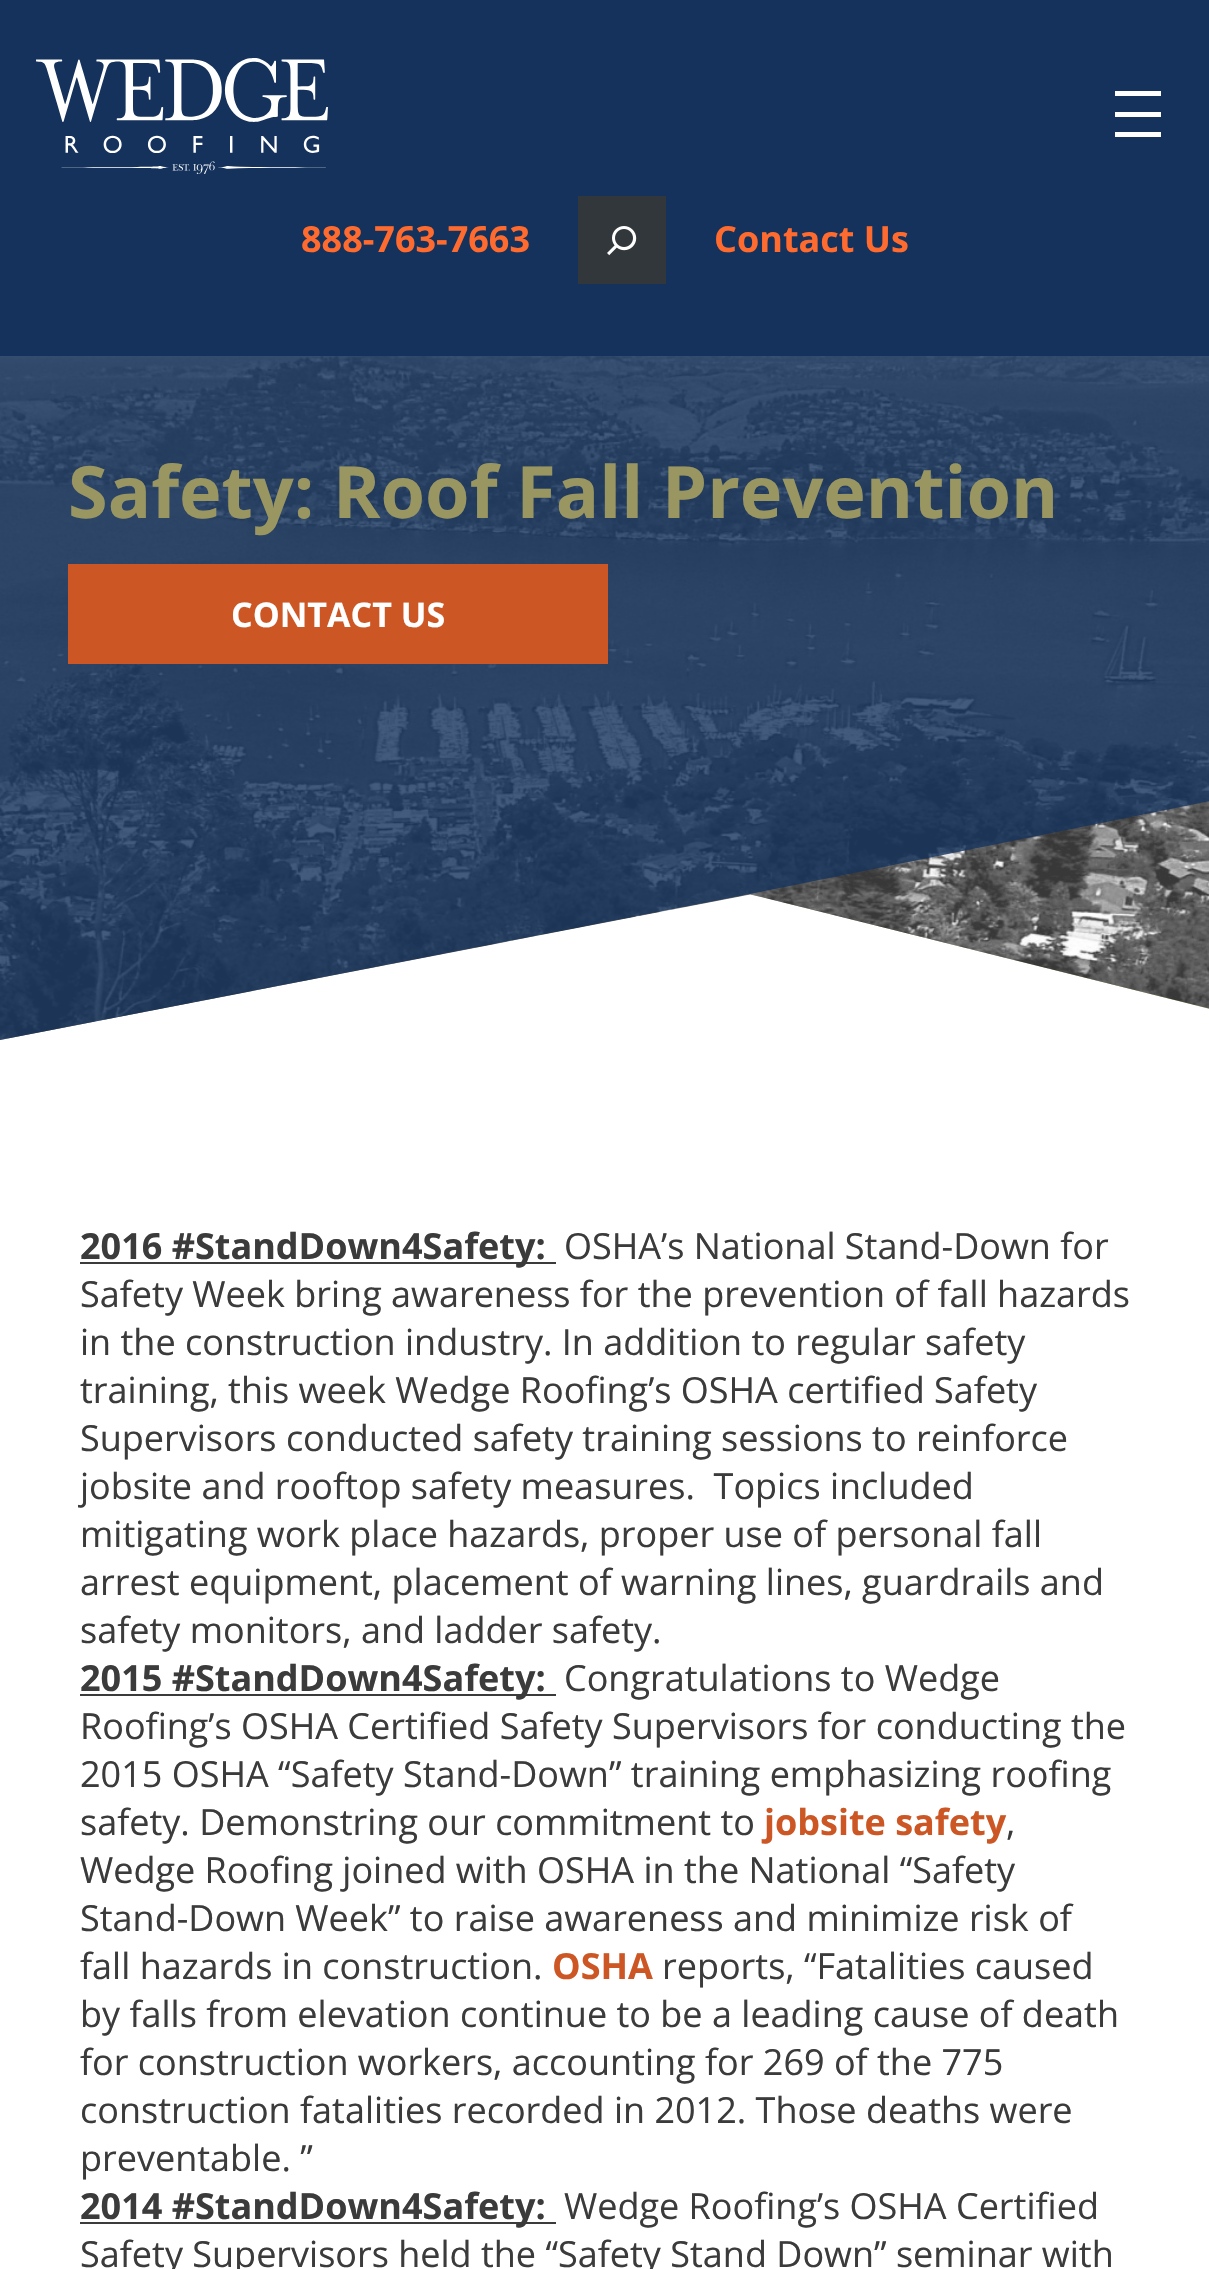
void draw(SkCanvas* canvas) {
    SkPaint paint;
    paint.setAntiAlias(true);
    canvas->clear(0xFFFFFFFF);
    paint.setColor(0xFFBDBB80);
    canvas->drawPath(SkPathBuilder().moveTo(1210, 801).lineTo(750, 894).lineTo(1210, 1009).close().detach(), paint);
    canvas->drawImageRect(SkImages::DeferredFromEncodedData(SkData::MakeFromFileName("img3.png")), SkRect::MakeXYWH(0, 356, 1209, 684), SkSamplingOptions());
    paint.setColor(0xCC14325C);
    canvas->drawPath(SkPathBuilder().moveTo(0, 0).lineTo(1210, 0).lineTo(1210, 801).lineTo(750, 894).lineTo(0, 1040).close().detach(), paint);
    paint.setColor(0xFF14325C);
    canvas->drawRect(SkRect::MakeXYWH(0, 0, 1209, 356), paint);
    canvas->drawImageRect(SkImages::DeferredFromEncodedData(SkData::MakeFromFileName("img1.png")), SkRect::MakeXYWH(36, 58, 292, 116), SkSamplingOptions());
    paint.setColor(0xFFFFFFFF);
    canvas->drawRect(SkRect::MakeXYWH(1115, 91, 46, 5), paint);
    canvas->drawRect(SkRect::MakeXYWH(1115, 112, 46, 5), paint);
    canvas->drawRect(SkRect::MakeXYWH(1115, 132, 46, 5), paint);
    SkFont font1(fontMgr->matchFamilyStyle("Open Sans", SkFontStyle::Bold()), 36);
    font1.setSubpixel(true);
    paint.setColor(0xFFFF6B2E);
    canvas->drawString("888-763-7663", 301, 252, font1, paint);
    paint.setColor(0xFF32373C);
    canvas->drawRect(SkRect::MakeXYWH(578, 196, 88, 88), paint);
    canvas->drawImageRect(SkImages::DeferredFromEncodedData(SkData::MakeFromFileName("img2.png")), SkRect::MakeXYWH(607, 226, 30, 30), SkSamplingOptions());
    paint.setColor(0xFFFF6B2E);
    canvas->drawString("Contact Us", 714, 252, font1, paint);
    SkFont font2(fontMgr->matchFamilyStyle("Open Sans", SkFontStyle::Bold()), 72);
    font2.setSubpixel(true);
    paint.setColor(0xFF999661);
    canvas->drawString("Safety: Roof Fall Prevention", 68, 518, font2, paint);
    paint.setColor(0xFFCC5724);
    canvas->drawRect(SkRect::MakeXYWH(68, 564, 540, 100), paint);
    SkFont font3(fontMgr->matchFamilyStyle("Open Sans", SkFontStyle::Bold()), 34);
    font3.setSubpixel(true);
    paint.setColor(0xFFFFFFFF);
    canvas->drawString("CONTACT US", 231, 627, font3, paint);
    paint.setColor(0xFF3B3B3B);
    canvas->drawRect(SkRect::MakeXYWH(80, 1262, 476, 2), paint);
    canvas->drawString("2016 #StandDown4Safety:", 80, 1259, font1, paint);
    SkFont font4(fontMgr->matchFamilyStyle("Open Sans", SkFontStyle::Normal()), 36);
    font4.setSubpixel(true);
    canvas->drawString("OSHA’s National Stand-Down for", 564, 1259, font4, paint);
    canvas->drawString("Safety Week bring awareness for the prevention of fall hazards", 80, 1307, font4, paint);
    canvas->drawString("in the construction industry. In addition to regular safety", 80, 1355, font4, paint);
    canvas->drawString("training, this week Wedge Roofing’s OSHA certified Safety", 80, 1403, font4, paint);
    canvas->drawString("Supervisors conducted safety training sessions to reinforce", 80, 1451, font4, paint);
    canvas->drawString("jobsite and rooftop safety measures.  Topics included", 80, 1499, font4, paint);
    canvas->drawString("mitigating work place hazards, proper use of personal fall", 80, 1547, font4, paint);
    canvas->drawString("arrest equipment, placement of warning lines, guardrails and", 80, 1595, font4, paint);
    canvas->drawString("safety monitors, and ladder safety.", 80, 1643, font4, paint);
    canvas->drawRect(SkRect::MakeXYWH(80, 1694, 476, 2), paint);
    canvas->drawString("2015 #StandDown4Safety:", 80, 1691, font1, paint);
    canvas->drawString("Congratulations to Wedge", 564, 1691, font4, paint);
    canvas->drawString("Roofing’s OSHA Certified Safety Supervisors for conducting the", 80, 1739, font4, paint);
    canvas->drawString("2015 OSHA “Safety Stand-Down” training emphasizing roofing", 80, 1787, font4, paint);
    canvas->drawString("safety. Demonstring our commitment to", 80, 1835, font4, paint);
    paint.setColor(0xFFCC5724);
    canvas->drawString("jobsite safety", 764, 1835, font1, paint);
    paint.setColor(0xFF3B3B3B);
    canvas->drawString(",", 1006, 1835, font4, paint);
    canvas->drawString("Wedge Roofing joined with OSHA in the National “Safety", 80, 1883, font4, paint);
    canvas->drawString("Stand-Down Week” to raise awareness and minimize risk of", 80, 1931, font4, paint);
    canvas->drawString("fall hazards in construction.", 80, 1979, font4, paint);
    paint.setColor(0xFFCC5724);
    canvas->drawString("OSHA", 552, 1979, font1, paint);
    paint.setColor(0xFF3B3B3B);
    canvas->drawString("reports, “Fatalities caused", 662, 1979, font4, paint);
    canvas->drawString("by falls from elevation continue to be a leading cause of death", 80, 2027, font4, paint);
    canvas->drawString("for construction workers, accounting for 269 of the 775", 80, 2075, font4, paint);
    canvas->drawString("construction fatalities recorded in 2012. Those deaths were", 80, 2123, font4, paint);
    canvas->drawString("preventable. ”", 80, 2171, font4, paint);
    canvas->drawRect(SkRect::MakeXYWH(80, 2222, 476, 2), paint);
    canvas->drawString("2014 #StandDown4Safety:", 80, 2219, font1, paint);
    canvas->drawString("Wedge Roofing’s OSHA Certified", 564, 2219, font4, paint);
    canvas->drawString("Safety Supervisors held the “Safety Stand Down” seminar with", 80, 2267, font4, paint);
}
